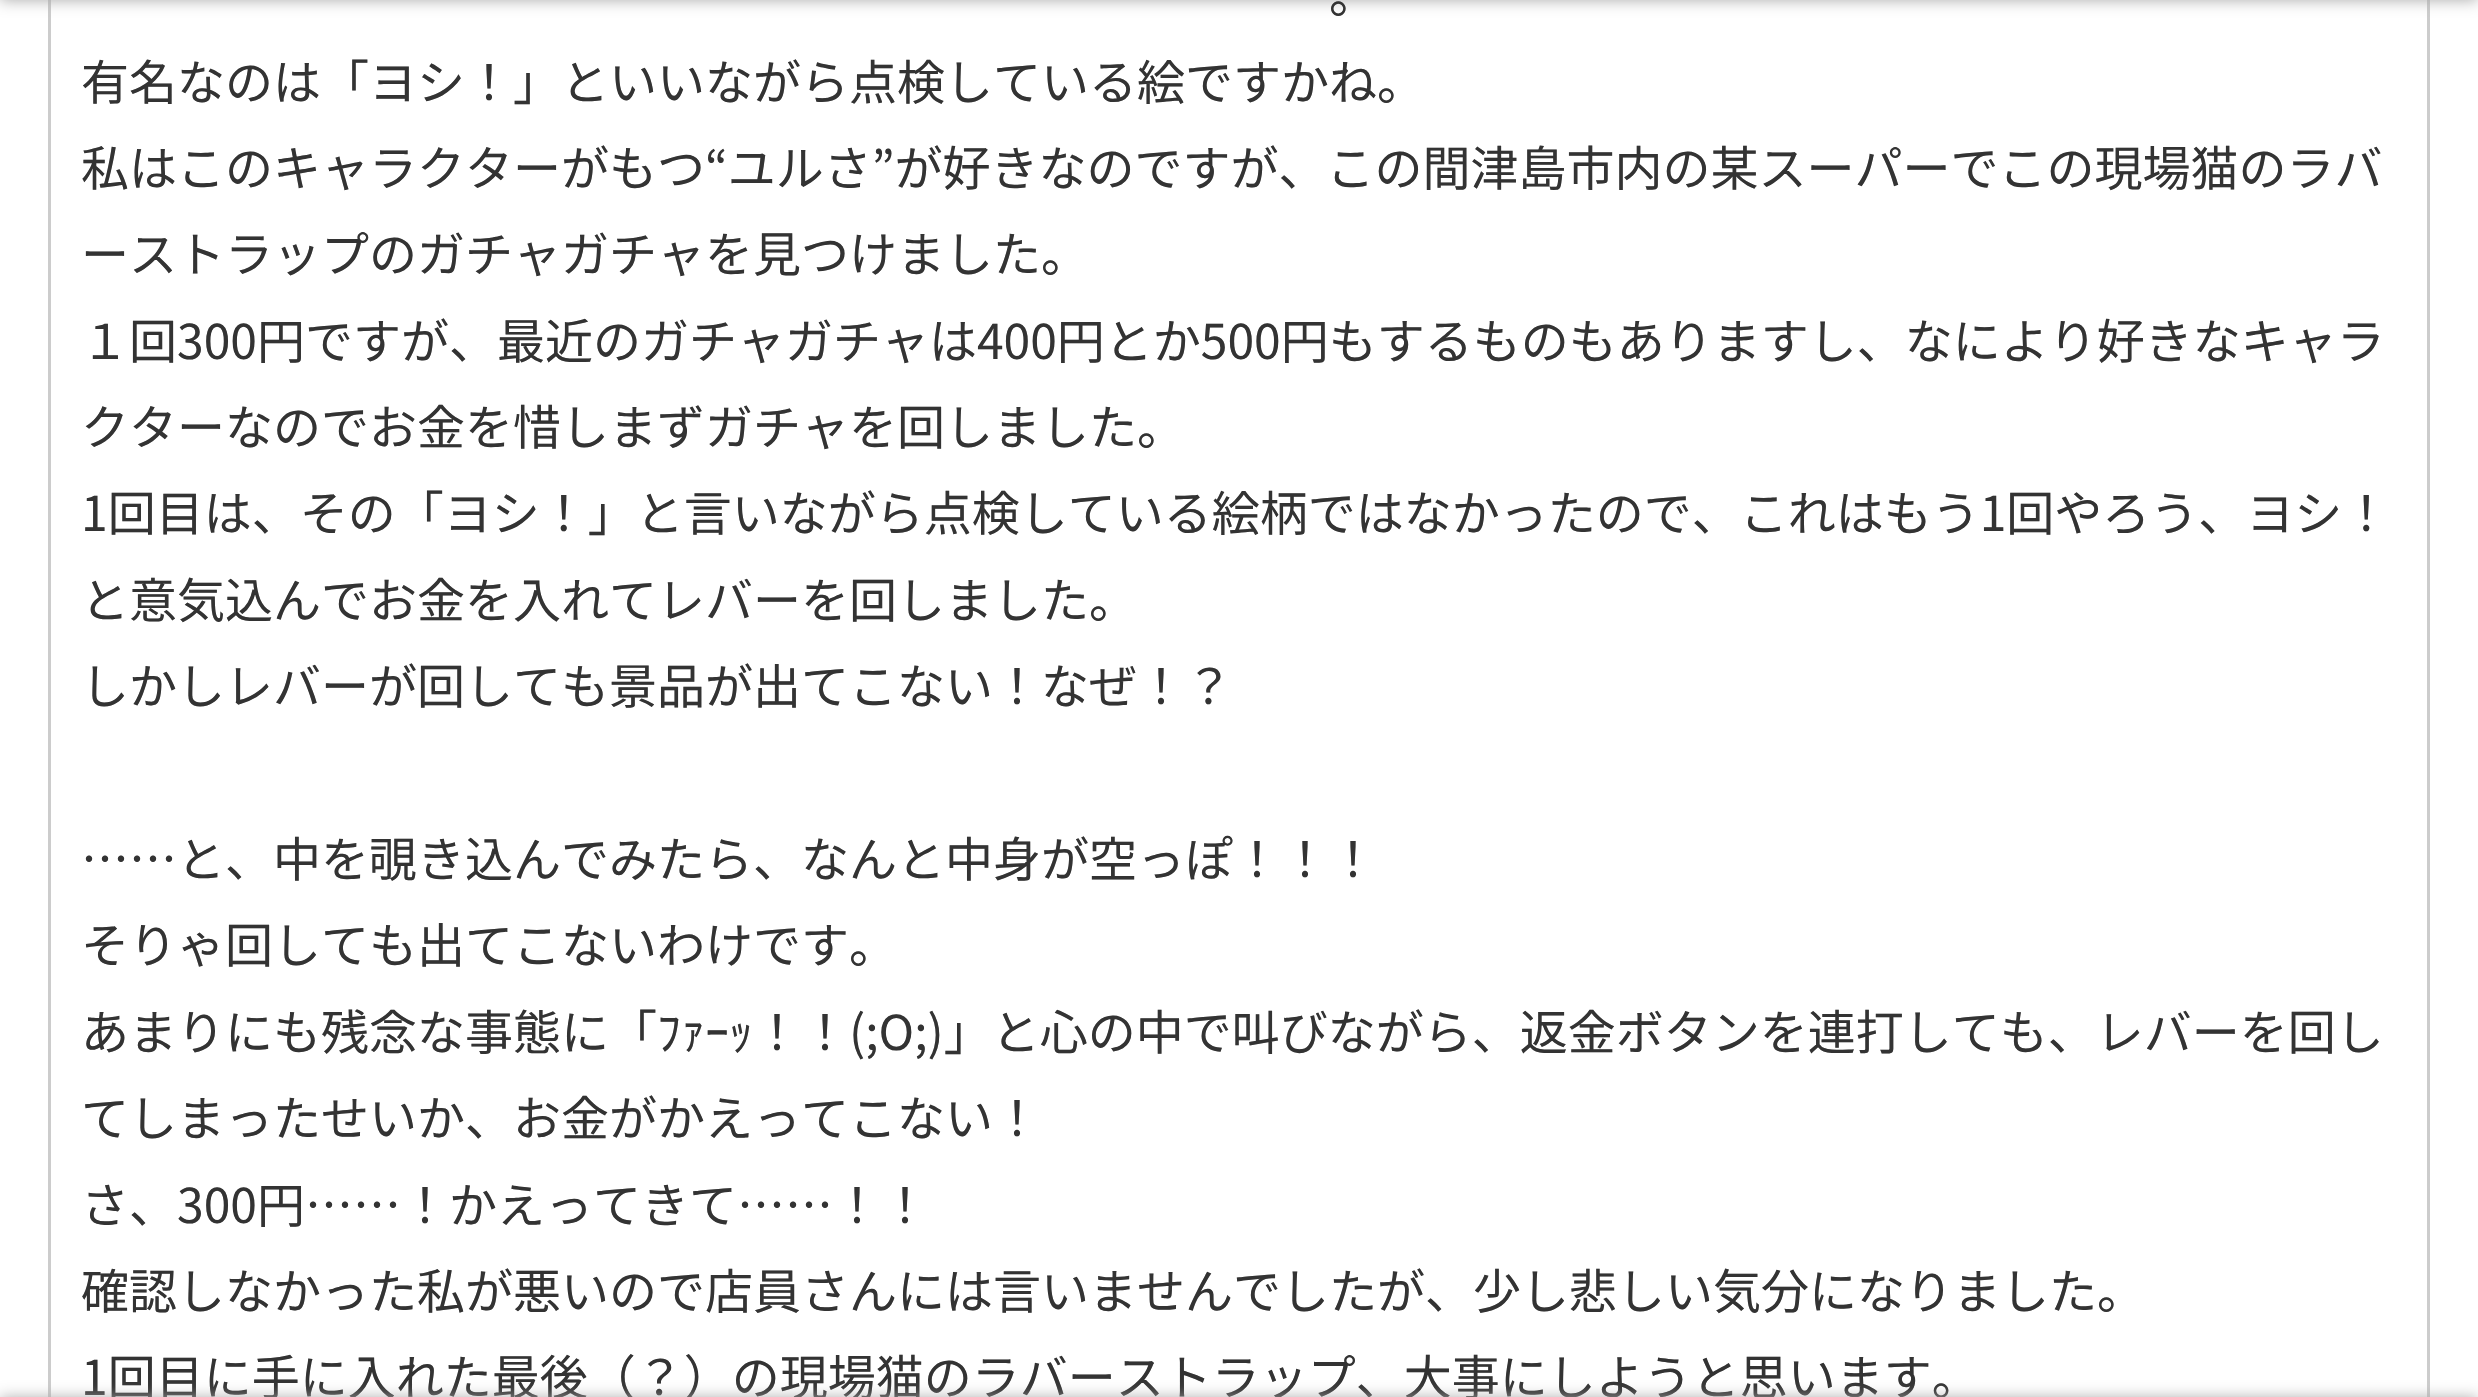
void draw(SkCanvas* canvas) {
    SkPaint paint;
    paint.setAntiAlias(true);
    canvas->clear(0xFFFFFFFF);
    paint.setStyle(SkPaint::kStroke_Style);
    paint.setStrokeWidth(3);
    paint.setColor(0xFFCCCCCC);
    canvas->drawRect(SkRect::MakeXYWH(49.5f, -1.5f, 2379, 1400), paint);
    paint.setStyle(SkPaint::kFill_Style);
    paint.setColor(0xFFA9A9A9);
    paint.setMaskFilter(SkMaskFilter::MakeBlur(kNormal_SkBlurStyle, 7.5f));
    canvas->drawRect(SkRect::MakeXYWH(0, -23, 2478, 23), paint);
    paint.setMaskFilter(nullptr);
    SkFont font1(fontMgr->matchFamilyStyle("Noto Sans JP", SkFontStyle::Normal()), 48);
    font1.setSubpixel(true);
    paint.setColor(0xFF333333);
    canvas->drawString("。", 1329, 13, font1, paint);
    canvas->drawString("有名なのは「ヨシ！」といいながら点検している絵ですかね。", 81, 100, font1, paint);
    canvas->drawString("私はこのキャラクターがもつ“ユルさ”が好きなのですが、この間津島市内の某スーパーでこの現場猫のラバ", 81, 186, font1, paint);
    canvas->drawString("ーストラップのガチャガチャを見つけました。", 81, 272, font1, paint);
    canvas->drawString("１回300円ですが、最近のガチャガチャは400円とか500円もするものもありますし、なにより好きなキャラ", 81, 359, font1, paint);
    canvas->drawString("クターなのでお金を惜しまずガチャを回しました。", 81, 445, font1, paint);
    canvas->drawString("1回目は、その「ヨシ！」と言いながら点検している絵柄ではなかったので、これはもう1回やろう、ヨシ！", 81, 531, font1, paint);
    canvas->drawString("と意気込んでお金を入れてレバーを回しました。", 81, 618, font1, paint);
    canvas->drawString("しかしレバーが回しても景品が出てこない！なぜ！？", 81, 704, font1, paint);
    canvas->drawString("……と、中を覗き込んでみたら、なんと中身が空っぽ！！！", 81, 877, font1, paint);
    canvas->drawString("そりゃ回しても出てこないわけです。", 81, 963, font1, paint);
    canvas->drawString("あまりにも残念な事態に「ﾌｧｰｯ！！(;O;)」と心の中で叫びながら、返金ボタンを連打しても、レバーを回し", 81, 1050, font1, paint);
    canvas->drawString("てしまったせいか、お金がかえってこない！", 81, 1136, font1, paint);
    canvas->drawString("さ、300円……！かえってきて……！！", 81, 1223, font1, paint);
    canvas->drawString("確認しなかった私が悪いので店員さんには言いませんでしたが、少し悲しい気分になりました。", 81, 1309, font1, paint);
    canvas->drawString("1回目に手に入れた最後（？）の現場猫のラバーストラップ、大事にしようと思います。", 81, 1395, font1, paint);
    paint.setColor(0xFFA9A9A9);
    paint.setMaskFilter(SkMaskFilter::MakeBlur(kNormal_SkBlurStyle, 7.5f));
    canvas->drawRect(SkRect::MakeXYWH(0, 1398, 2478, 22), paint);
    paint.setMaskFilter(nullptr);
}
